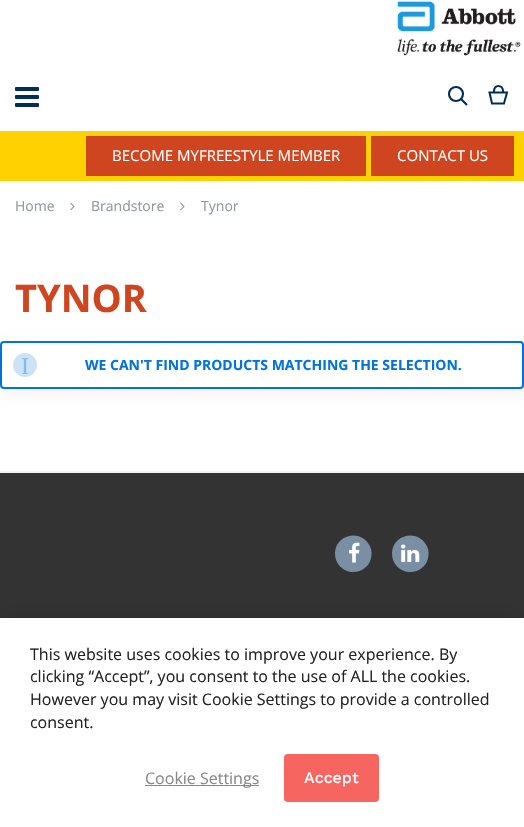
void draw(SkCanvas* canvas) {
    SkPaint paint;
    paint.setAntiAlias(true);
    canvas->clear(0xFFFFFFFF);
    canvas->drawImageRect(SkImages::DeferredFromEncodedData(SkData::MakeFromFileName("img1.png")), SkRect::MakeXYWH(397, 1, 124, 55), SkSamplingOptions());
    canvas->drawImageRect(SkImages::DeferredFromEncodedData(SkData::MakeFromFileName("img2.png")), SkRect::MakeXYWH(15, 87, 24, 20), SkSamplingOptions());
    paint.setStyle(SkPaint::kStroke_Style);
    paint.setStrokeWidth(2.1f);
    paint.setColor(0xFF002D57);
    canvas->drawCircle(456, 94, 7, paint);
    canvas->drawPath(SkPathBuilder().moveTo(460.5f, 98.5f).lineTo(467, 105).detach(), paint);
    paint.setStrokeWidth(2);
    paint.setStrokeCap(SkPaint::kSquare_Cap);
    paint.setStrokeJoin(SkPaint::kRound_Join);
    canvas->drawPath(SkPathBuilder().moveTo(494, 91.5f).cubicTo(494, 84, 503, 84, 503, 91.5f).detach(), paint);
    paint.setStrokeJoin(SkPaint::kMiter_Join);
    canvas->drawPath(SkPathBuilder().moveTo(504, 103.5f).lineTo(507, 92.5f).lineTo(489.5f, 92.5f).lineTo(492, 103.5f).close().detach(), paint);
    paint.setStyle(SkPaint::kFill_Style);
    paint.setColor(0xFFFFD100);
    canvas->drawRect(SkRect::MakeXYWH(0, 131, 524, 50), paint);
    paint.setColor(0xFFCF4520);
    canvas->drawRect(SkRect::MakeXYWH(86, 136, 280, 40), paint);
    SkFont font1(fontMgr->matchFamilyStyle("Open Sans", SkFontStyle::Normal()), 15);
    font1.setSubpixel(true);
    paint.setColor(0xFFFFFFFF);
    canvas->drawString("BECOME MYFREESTYLE MEMBER", 112, 161, font1, paint);
    paint.setColor(0xFFCF4520);
    canvas->drawRect(SkRect::MakeXYWH(371, 136, 143, 40), paint);
    paint.setColor(0xFFFFFFFF);
    canvas->drawString("CONTACT US", 397, 161, font1, paint);
    SkFont font2(fontMgr->matchFamilyStyle("Open Sans", SkFontStyle::Normal()), 14);
    font2.setSubpixel(true);
    paint.setColor(0xFF8F98A1);
    canvas->drawString("Home", 15, 211, font2, paint);
    canvas->drawImageRect(SkImages::DeferredFromEncodedData(SkData::MakeFromFileName("img3.png")), SkRect::MakeXYWH(70, 202, 5, 9), SkSamplingOptions());
    canvas->drawString("Brandstore", 91, 211, font2, paint);
    canvas->drawImageRect(SkImages::DeferredFromEncodedData(SkData::MakeFromFileName("img3.png")), SkRect::MakeXYWH(180, 202, 5, 9), SkSamplingOptions());
    canvas->drawString("Tynor", 201, 211, font2, paint);
    SkFont font3(fontMgr->matchFamilyStyle("Open Sans", SkFontStyle::Bold()), 38);
    font3.setSubpixel(true);
    paint.setColor(0xFFCF4520);
    canvas->drawString("TYNOR", 15, 312, font3, paint);
    paint.setColor(0x0D000000);
    paint.setMaskFilter(SkMaskFilter::MakeBlur(kNormal_SkBlurStyle, 7));
    canvas->drawRoundRect(SkRect::MakeXYWH(4, 345, 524, 48), 4, 4, paint);
    paint.setMaskFilter(nullptr);
    paint.setColor(0xFFFFFFFF);
    canvas->drawRoundRect(SkRect::MakeXYWH(1, 342, 522, 46), 3, 3, paint);
    paint.setStyle(SkPaint::kStroke_Style);
    paint.setStrokeCap(SkPaint::kButt_Cap);
    paint.setColor(0xFF0074D9);
    canvas->drawRoundRect(SkRect::MakeXYWH(1, 342, 522, 46), 3, 3, paint);
    canvas->drawImageRect(SkImages::DeferredFromEncodedData(SkData::MakeFromFileName("img4.png")), SkRect::MakeXYWH(13, 353, 24, 24), SkSamplingOptions());
    SkFont font4(fontMgr->matchFamilyStyle("Liberation Serif", SkFontStyle::Normal()), 24);
    font4.setSubpixel(true);
    paint.setStyle(SkPaint::kFill_Style);
    paint.setColor(0xFF82BBEC);
    canvas->drawString("I", 21, 374, font4, paint);
    SkFont font5(fontMgr->matchFamilyStyle("Open Sans", SkFontStyle::Bold()), 14);
    font5.setSubpixel(true);
    paint.setColor(0xFF0074D9);
    canvas->drawString("WE CAN'T FIND PRODUCTS MATCHING THE SELECTION.", 85, 370, font5, paint);
    paint.setColor(0xFF333333);
    canvas->drawRect(SkRect::MakeXYWH(0, 473, 524, 145), paint);
    paint.setColor(0xFFEFF3F6);
    canvas->drawRect(SkRect::MakeXYWH(0, 471, 524, 2), paint);
    paint.setColor(0xFF7A8FA3);
    canvas->drawPath(SkPathBuilder().moveTo(369, 544.5f).cubicTo(371, 547.5f, 372, 551.5f, 371.5f, 555).cubicTo(370.5f, 573, 346.5f, 578.5f, 337.5f, 563).cubicTo(335.5f, 560, 335, 556, 335, 552.5f).cubicTo(336, 534.5f, 360, 529, 369, 544.5f).close().detach(), paint);
    canvas->drawImageRect(SkImages::DeferredFromEncodedData(SkData::MakeFromFileName("img5.png")), SkRect::MakeXYWH(349, 542, 11, 21), SkSamplingOptions());
    canvas->drawPath(SkPathBuilder().moveTo(426, 544.5f).cubicTo(428, 547.5f, 429, 551.5f, 428.5f, 555).cubicTo(427.5f, 573, 403.5f, 578.5f, 394.5f, 563).cubicTo(392.5f, 560, 392, 556, 392, 552.5f).cubicTo(393, 534.5f, 417, 529, 426, 544.5f).close().detach(), paint);
    canvas->drawImageRect(SkImages::DeferredFromEncodedData(SkData::MakeFromFileName("img6.png")), SkRect::MakeXYWH(401, 544, 19, 18), SkSamplingOptions());
    paint.setColor(0x33000000);
    paint.setMaskFilter(SkMaskFilter::MakeBlur(kNormal_SkBlurStyle, 10));
    canvas->drawRect(SkRect::MakeXYWH(5, 623, 514, 199), paint);
    paint.setMaskFilter(nullptr);
    paint.setColor(0xFFFFFFFF);
    canvas->drawRect(SkRect::MakeXYWH(0, 618, 524, 209), paint);
    SkFont font6(fontMgr->matchFamilyStyle("Open Sans", SkFontStyle::Normal()), 16);
    font6.setSubpixel(true);
    paint.setColor(0xFF222222);
    canvas->drawString("This website uses cookies to improve your experience. By", 30, 660, font6, paint);
    canvas->drawString("clicking “Accept”, you consent to the use of ALL the cookies.", 30, 682, font6, paint);
    canvas->drawString("However you may visit Cookie Settings to provide a controlled", 30, 705, font6, paint);
    canvas->drawString("consent.", 30, 728, font6, paint);
    paint.setColor(0xFF888888);
    canvas->drawRect(SkRect::MakeXYWH(145, 785, 114, 1), paint);
    canvas->drawString("Cookie Settings", 145, 784, font6, paint);
    paint.setColor(0xFFF66560);
    canvas->drawRoundRect(SkRect::MakeXYWH(284, 754, 95, 48), 4, 4, paint);
    SkFont font7(fontMgr->matchFamilyStyle("Work Sans", SkFontStyle(500, SkFontStyle::kNormal_Width, SkFontStyle::kUpright_Slant)), 16);
    font7.setSubpixel(true);
    paint.setColor(0xFFFFFFFF);
    canvas->drawString("Accept", 304, 783, font7, paint);
}
